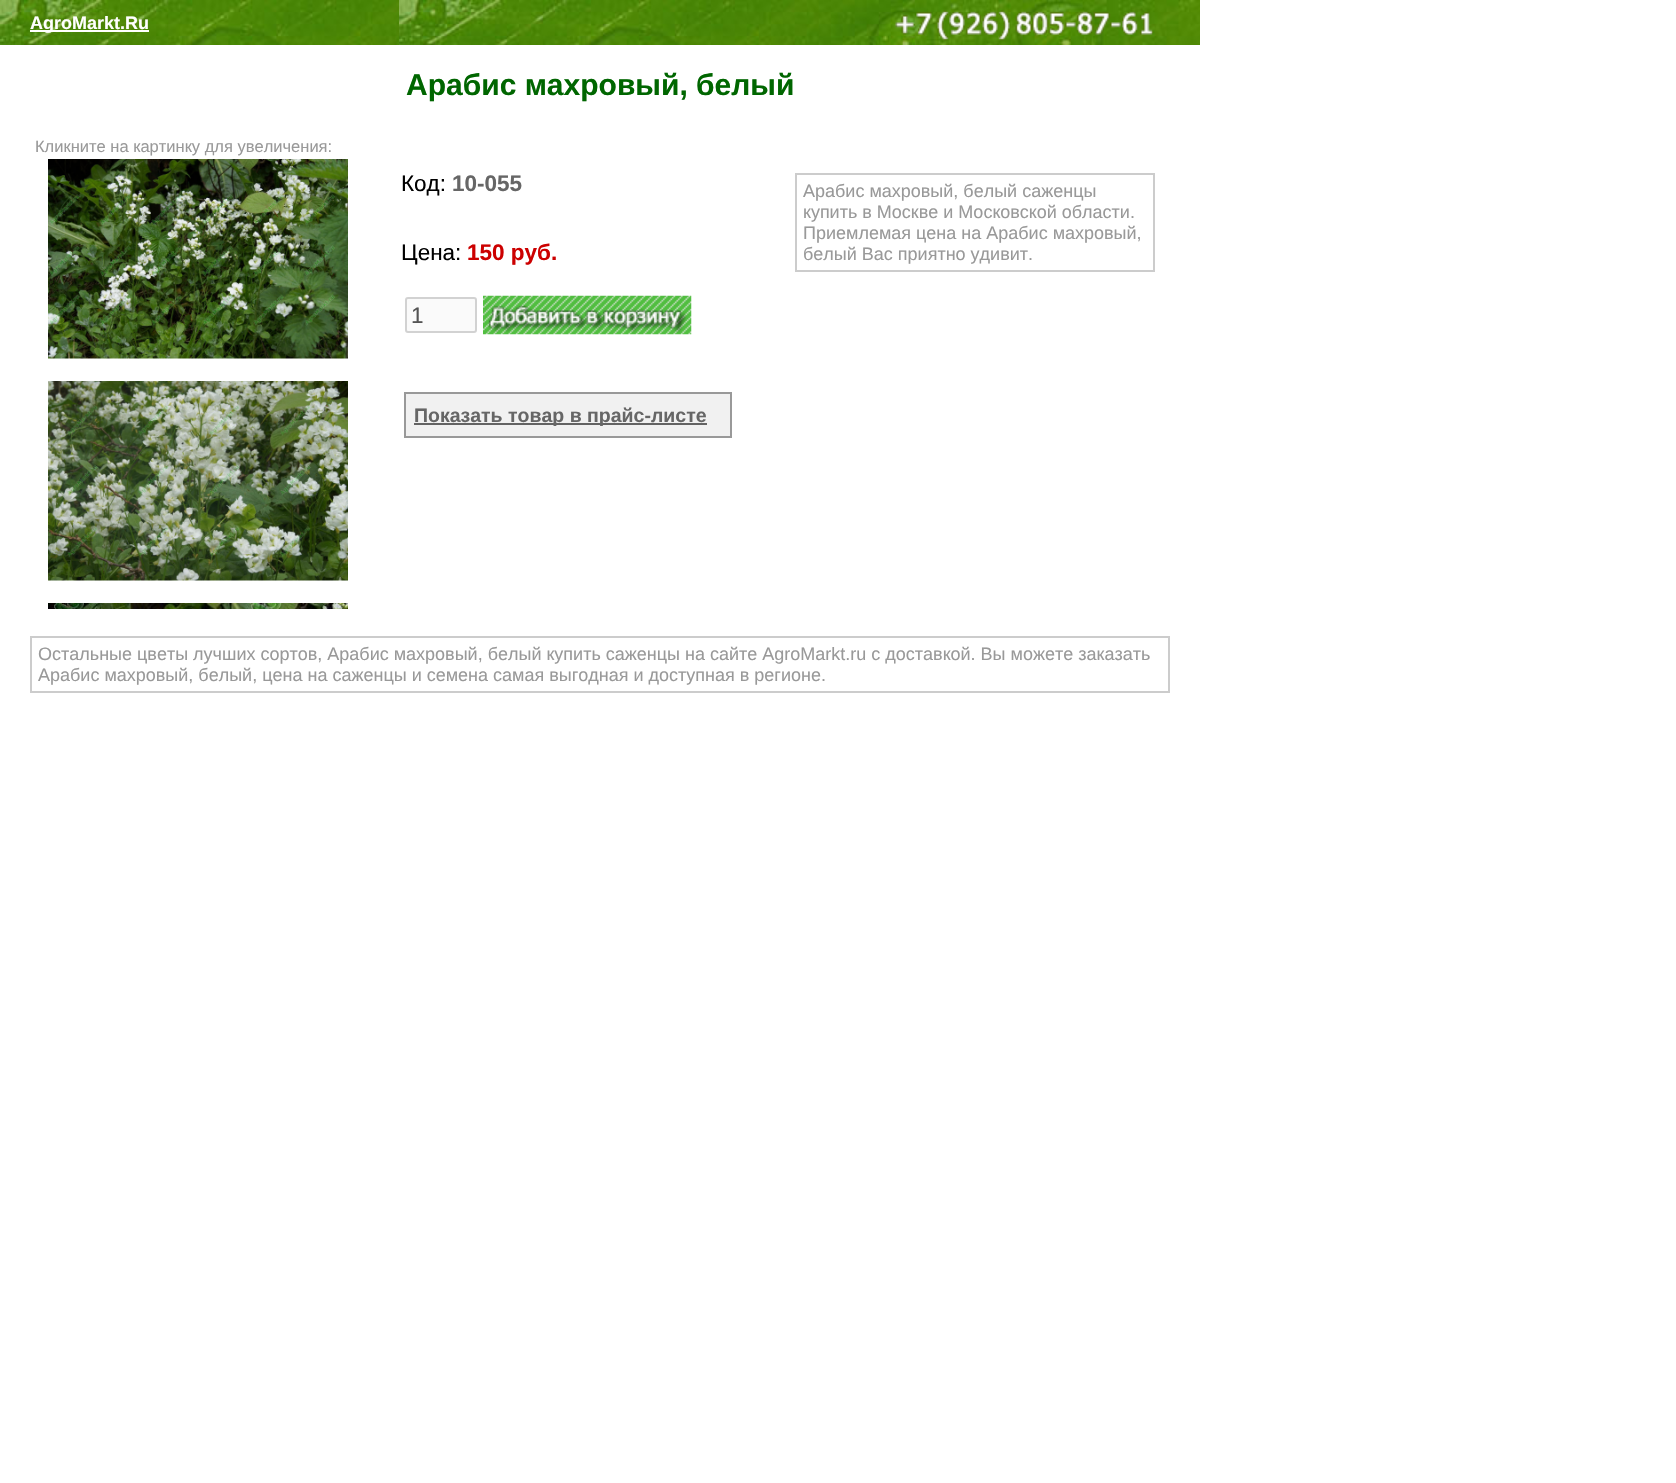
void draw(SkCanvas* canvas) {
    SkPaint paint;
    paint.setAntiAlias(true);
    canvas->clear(0xFFFFFFFF);
    canvas->drawImageRect(SkImages::DeferredFromEncodedData(SkData::MakeFromFileName("img1.png")), SkRect::MakeXYWH(0, 0, 399, 45), SkSamplingOptions());
    paint.setColor(0xFFFFFFFF);
    canvas->drawRect(SkRect::MakeXYWH(30, 30, 119, 2), paint);
    SkFont font1(fontMgr->matchFamilyStyle("Liberation Sans", SkFontStyle::Bold()), 18);
    font1.setSubpixel(true);
    canvas->drawString("AgroMarkt.Ru", 30, 29, font1, paint);
    canvas->drawImageRect(SkImages::DeferredFromEncodedData(SkData::MakeFromFileName("img2.png")), SkRect::MakeXYWH(399, 0, 801, 45), SkSamplingOptions());
    canvas->drawImageRect(SkImages::DeferredFromEncodedData(SkData::MakeFromFileName("img3.png")), SkRect::MakeXYWH(895, 10, 259, 31), SkSamplingOptions());
    SkFont font2(fontMgr->matchFamilyStyle("Liberation Sans", SkFontStyle::Bold()), 30);
    font2.setSubpixel(true);
    paint.setColor(0xFF006600);
    canvas->drawString("Арабис махровый, белый", 406, 95, font2, paint);
    SkFont font3(fontMgr->matchFamilyStyle("Liberation Sans", SkFontStyle::Normal()), 16.5f);
    font3.setSubpixel(true);
    paint.setColor(0xFF999999);
    canvas->drawString("Кликните на картинку для увеличения:", 35, 152, font3, paint);
    canvas->drawImageRect(SkImages::DeferredFromEncodedData(SkData::MakeFromFileName("img4.png")), SkRect::MakeXYWH(48, 159, 300, 200), SkSamplingOptions());
    canvas->drawImageRect(SkImages::DeferredFromEncodedData(SkData::MakeFromFileName("img5.png")), SkRect::MakeXYWH(48, 381, 300, 200), SkSamplingOptions());
    canvas->drawImageRect(SkImages::DeferredFromEncodedData(SkData::MakeFromFileName("img6.png")), SkRect::MakeXYWH(48, 603, 300, 6), SkSamplingOptions());
    SkFont font4(fontMgr->matchFamilyStyle("Liberation Sans", SkFontStyle::Normal()), 22.5f);
    font4.setSubpixel(true);
    paint.setColor(0xFF000000);
    canvas->drawString("Код:", 401, 191, font4, paint);
    SkFont font5(fontMgr->matchFamilyStyle("Liberation Sans", SkFontStyle::Bold()), 22.5f);
    font5.setSubpixel(true);
    paint.setColor(0xFF666666);
    canvas->drawString("10-055", 452, 191, font5, paint);
    paint.setColor(0xFF000000);
    canvas->drawString("Цена:", 401, 260, font4, paint);
    paint.setColor(0xFFCC0000);
    canvas->drawString("150 руб.", 467, 260, font5, paint);
    paint.setColor(0xFFFAFAFA);
    canvas->drawRoundRect(SkRect::MakeXYWH(406, 298, 70, 34), 2, 2, paint);
    paint.setStyle(SkPaint::kStroke_Style);
    paint.setStrokeWidth(2);
    paint.setColor(0xFFD2D2D2);
    canvas->drawRoundRect(SkRect::MakeXYWH(406, 298, 70, 34), 2, 2, paint);
    paint.setStyle(SkPaint::kFill_Style);
    paint.setColor(0xFF545454);
    canvas->drawString("1", 411, 323, font4, paint);
    canvas->drawImageRect(SkImages::DeferredFromEncodedData(SkData::MakeFromFileName("img7.png")), SkRect::MakeXYWH(483, 295, 209, 40), SkSamplingOptions());
    paint.setColor(0xFFF1F1F1);
    canvas->drawRect(SkRect::MakeXYWH(405, 393, 326, 44), paint);
    paint.setStyle(SkPaint::kStroke_Style);
    paint.setColor(0xFF999999);
    canvas->drawRect(SkRect::MakeXYWH(405, 393, 326, 44), paint);
    paint.setStyle(SkPaint::kFill_Style);
    paint.setColor(0xFF636363);
    canvas->drawRect(SkRect::MakeXYWH(414, 423, 293, 2), paint);
    SkFont font6(fontMgr->matchFamilyStyle("Liberation Sans", SkFontStyle::Bold()), 19.5f);
    font6.setSubpixel(true);
    paint.setColor(0xFF666666);
    canvas->drawString("Показать товар в прайс-листе", 414, 422, font6, paint);
    paint.setStyle(SkPaint::kStroke_Style);
    paint.setColor(0xFFCCCCCC);
    canvas->drawRect(SkRect::MakeXYWH(796, 174, 358, 97), paint);
    SkFont font7(fontMgr->matchFamilyStyle("Liberation Sans", SkFontStyle::Normal()), 18);
    font7.setSubpixel(true);
    paint.setStyle(SkPaint::kFill_Style);
    paint.setColor(0xFF999999);
    canvas->drawString("Арабис махровый, белый саженцы", 803, 197, font7, paint);
    canvas->drawString("купить в Москве и Московской области.", 803, 218, font7, paint);
    canvas->drawString("Приемлемая цена на Арабис махровый,", 803, 239, font7, paint);
    canvas->drawString("белый Вас приятно удивит.", 803, 260, font7, paint);
    paint.setStyle(SkPaint::kStroke_Style);
    paint.setColor(0xFFCCCCCC);
    canvas->drawRect(SkRect::MakeXYWH(31, 637, 1138, 55), paint);
    paint.setStyle(SkPaint::kFill_Style);
    paint.setColor(0xFF999999);
    canvas->drawString("Остальные цветы лучших сортов, Арабис махровый, белый купить саженцы на сайте AgroMarkt.ru с доставкой. Вы можете заказать", 38, 660, font7, paint);
    canvas->drawString("Арабис махровый, белый, цена на саженцы и семена самая выгодная и доступная в регионе.", 38, 681, font7, paint);
}
